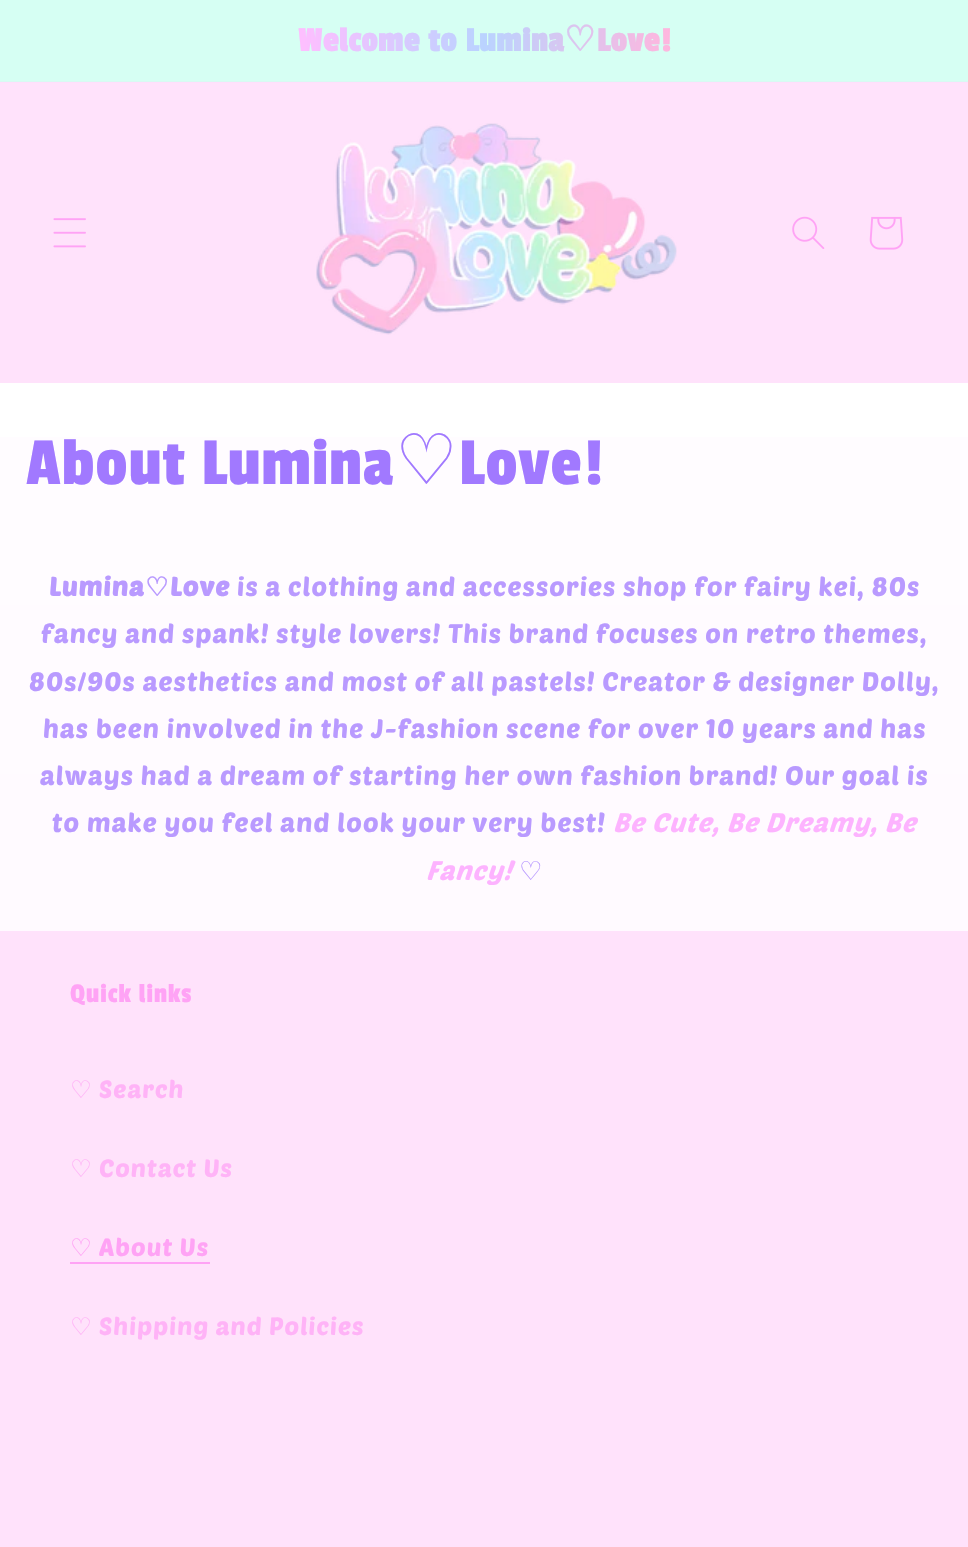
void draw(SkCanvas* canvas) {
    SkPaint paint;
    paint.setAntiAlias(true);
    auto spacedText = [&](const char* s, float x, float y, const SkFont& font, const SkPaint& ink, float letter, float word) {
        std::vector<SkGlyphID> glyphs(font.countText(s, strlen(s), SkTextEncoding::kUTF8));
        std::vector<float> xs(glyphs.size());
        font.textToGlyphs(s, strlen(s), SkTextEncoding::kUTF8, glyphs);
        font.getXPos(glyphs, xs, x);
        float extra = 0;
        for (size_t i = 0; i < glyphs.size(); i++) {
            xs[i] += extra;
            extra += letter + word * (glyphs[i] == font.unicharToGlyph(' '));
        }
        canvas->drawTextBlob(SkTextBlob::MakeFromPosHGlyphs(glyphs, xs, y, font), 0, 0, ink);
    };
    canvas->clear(0xFFFFFFFF);
    {
        const SkColor colors[] = {0xFFFFFFFF, 0xFFFFF6FF};
        const float stops[] = {0.01f, 0.99f};
        const SkPoint ends[] = {{485, 0}, {485, 1547}};
        paint.setShader(SkGradientShader::MakeLinear(ends, colors, stops, 2, SkTileMode::kClamp));
        paint.setAlpha(255);
    }
    canvas->drawRect(SkRect::MakeXYWH(0, 437, 968, 494), paint);
    paint.setShader(nullptr);
    paint.setColor(0xFFD6FFF3);
    canvas->drawRect(SkRect::MakeXYWH(0, 0, 968, 81), paint);
    paint.setColor(0xFFD9F9F3);
    canvas->drawRect(SkRect::MakeXYWH(0, 81, 968, 1), paint);
    SkFont font1(fontMgr->matchFamilyStyle("Passion One", SkFontStyle::Bold()), 35);
    font1.setSubpixel(true);
    {
        const SkColor colors[] = {0xFFFFBEFF, 0xFFBAD3FF, 0xFFFFB6DE};
        const float stops[] = {0, 0.5f, 1};
        const SkPoint ends[] = {{298, 40}, {671, 40}};
        paint.setShader(SkGradientShader::MakeLinear(ends, colors, stops, 3, SkTileMode::kClamp));
        paint.setAlpha(255);
    }
    spacedText("Welcome to Lumina", 298, 51, font1, paint, 0.9f, 0);
    SkFont font2(fontMgr->matchFamilyStyle("DejaVu Sans", SkFontStyle::Bold()), 35);
    font2.setSubpixel(true);
    spacedText("♡", 564, 51, font2, paint, 0.9f, 0);
    spacedText("Love!", 597, 51, font1, paint, 0.9f, 0);
    paint.setShader(nullptr);
    paint.setColor(0xFFFFE2FB);
    canvas->drawRect(SkRect::MakeXYWH(0, 83, 968, 300), paint);
    paint.setColor(0xFFFFDFFB);
    canvas->drawRect(SkRect::MakeXYWH(0, 82, 968, 1), paint);
    canvas->drawImageRect(SkImages::DeferredFromEncodedData(SkData::MakeFromFileName("img1.png")), SkRect::MakeXYWH(53, 218, 33, 30), SkSamplingOptions());
    canvas->drawImageRect(SkImages::DeferredFromEncodedData(SkData::MakeFromFileName("img2.png")), SkRect::MakeXYWH(316, 123, 361, 212), SkSamplingOptions());
    canvas->drawImageRect(SkImages::DeferredFromEncodedData(SkData::MakeFromFileName("img3.png")), SkRect::MakeXYWH(792, 216, 33, 33), SkSamplingOptions());
    canvas->drawImageRect(SkImages::DeferredFromEncodedData(SkData::MakeFromFileName("img4.png")), SkRect::MakeXYWH(869, 216, 35, 34), SkSamplingOptions());
    SkFont font3(fontMgr->matchFamilyStyle("Passion One", SkFontStyle::Normal()), 70);
    font3.setSubpixel(true);
    paint.setColor(0xFFA179FF);
    spacedText("About Lumina", 26, 484, font3, paint, 1.05f, 0);
    SkFont font4(fontMgr->matchFamilyStyle("DejaVu Sans", SkFontStyle::Normal()), 70);
    font4.setSubpixel(true);
    spacedText("♡", 395, 484, font4, paint, 1.05f, 0);
    spacedText("Love!", 459, 484, font3, paint, 1.05f, 0);
    SkFont font5(fontMgr->matchFamilyStyle("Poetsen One", SkFontStyle::Bold()), 26.25f);
    font5.setSubpixel(true);
    paint.setColor(0xFFB99AFF);
    spacedText("Lumina", 49, 596, font5, paint, 1.05f, 0);
    SkFont font6(fontMgr->matchFamilyStyle("DejaVu Sans", SkFontStyle::Bold()), 26.25f);
    font6.setSubpixel(true);
    spacedText("♡", 145, 596, font6, paint, 1.05f, 0);
    spacedText("Love", 170, 596, font5, paint, 1.05f, 0);
    SkFont font7(fontMgr->matchFamilyStyle("Poetsen One", SkFontStyle::Normal()), 26.25f);
    font7.setSubpixel(true);
    spacedText("is a clothing and accessories shop for fairy kei, 80s", 237, 596, font7, paint, 1.05f, 0);
    spacedText("fancy and spank! style lovers! This brand focuses on retro themes,", 41, 643, font7, paint, 1.05f, 0);
    spacedText("80s/90s aesthetics and most of all pastels! Creator & designer Dolly,", 29, 691, font7, paint, 1.05f, 0);
    spacedText("has been involved in the J-fashion scene for over 10 years and has", 43, 738, font7, paint, 1.05f, 0);
    spacedText("always had a dream of starting her own fashion brand! Our goal is", 40, 785, font7, paint, 1.05f, 0);
    spacedText("to make you feel and look your very best!", 52, 832, font7, paint, 1.05f, 0);
    SkFont font8(fontMgr->matchFamilyStyle("Poetsen One", SkFontStyle::Italic()), 26.25f);
    font8.setSubpixel(true);
    paint.setColor(0xFFFDB3FF);
    spacedText("Be Cute, Be Dreamy, Be", 613, 832, font8, paint, 1.05f, 0);
    spacedText("Fancy!", 426, 880, font8, paint, 1.05f, 0);
    SkFont font9(fontMgr->matchFamilyStyle("DejaVu Sans", SkFontStyle::Normal()), 26.25f);
    font9.setSubpixel(true);
    paint.setColor(0xFFB99AFF);
    spacedText("♡", 519, 880, font9, paint, 1.05f, 0);
    paint.setColor(0xFFFFE2FB);
    canvas->drawRect(SkRect::MakeXYWH(0, 931, 968, 616), paint);
    SkFont font10(fontMgr->matchFamilyStyle("Passion One", SkFontStyle::Normal()), 28);
    font10.setSubpixel(true);
    paint.setColor(0xFFFFA3F5);
    spacedText("Quick links", 70, 1002, font10, paint, 1.05f, 0);
    SkFont font11(fontMgr->matchFamilyStyle("DejaVu Sans", SkFontStyle::Normal()), 24.5f);
    font11.setSubpixel(true);
    paint.setColor(0xFFFFB3F7);
    spacedText("♡", 70, 1098, font11, paint, 1.05f, 0);
    SkFont font12(fontMgr->matchFamilyStyle("Poetsen One", SkFontStyle::Normal()), 24.5f);
    font12.setSubpixel(true);
    spacedText("Search", 99, 1098, font12, paint, 1.05f, 0);
    spacedText("♡", 70, 1177, font11, paint, 1.05f, 0);
    spacedText("Contact Us", 99, 1177, font12, paint, 1.05f, 0);
    paint.setColor(0xFFFFA3F5);
    spacedText("♡", 70, 1256, font11, paint, 1.05f, 0);
    canvas->drawRect(SkRect::MakeXYWH(70, 1262, 140, 2), paint);
    spacedText("About Us", 99, 1256, font12, paint, 1.05f, 0);
    paint.setColor(0xFFFFB3F7);
    spacedText("♡", 70, 1335, font11, paint, 1.05f, 0);
    spacedText("Shipping and Policies", 99, 1335, font12, paint, 1.05f, 0);
}
